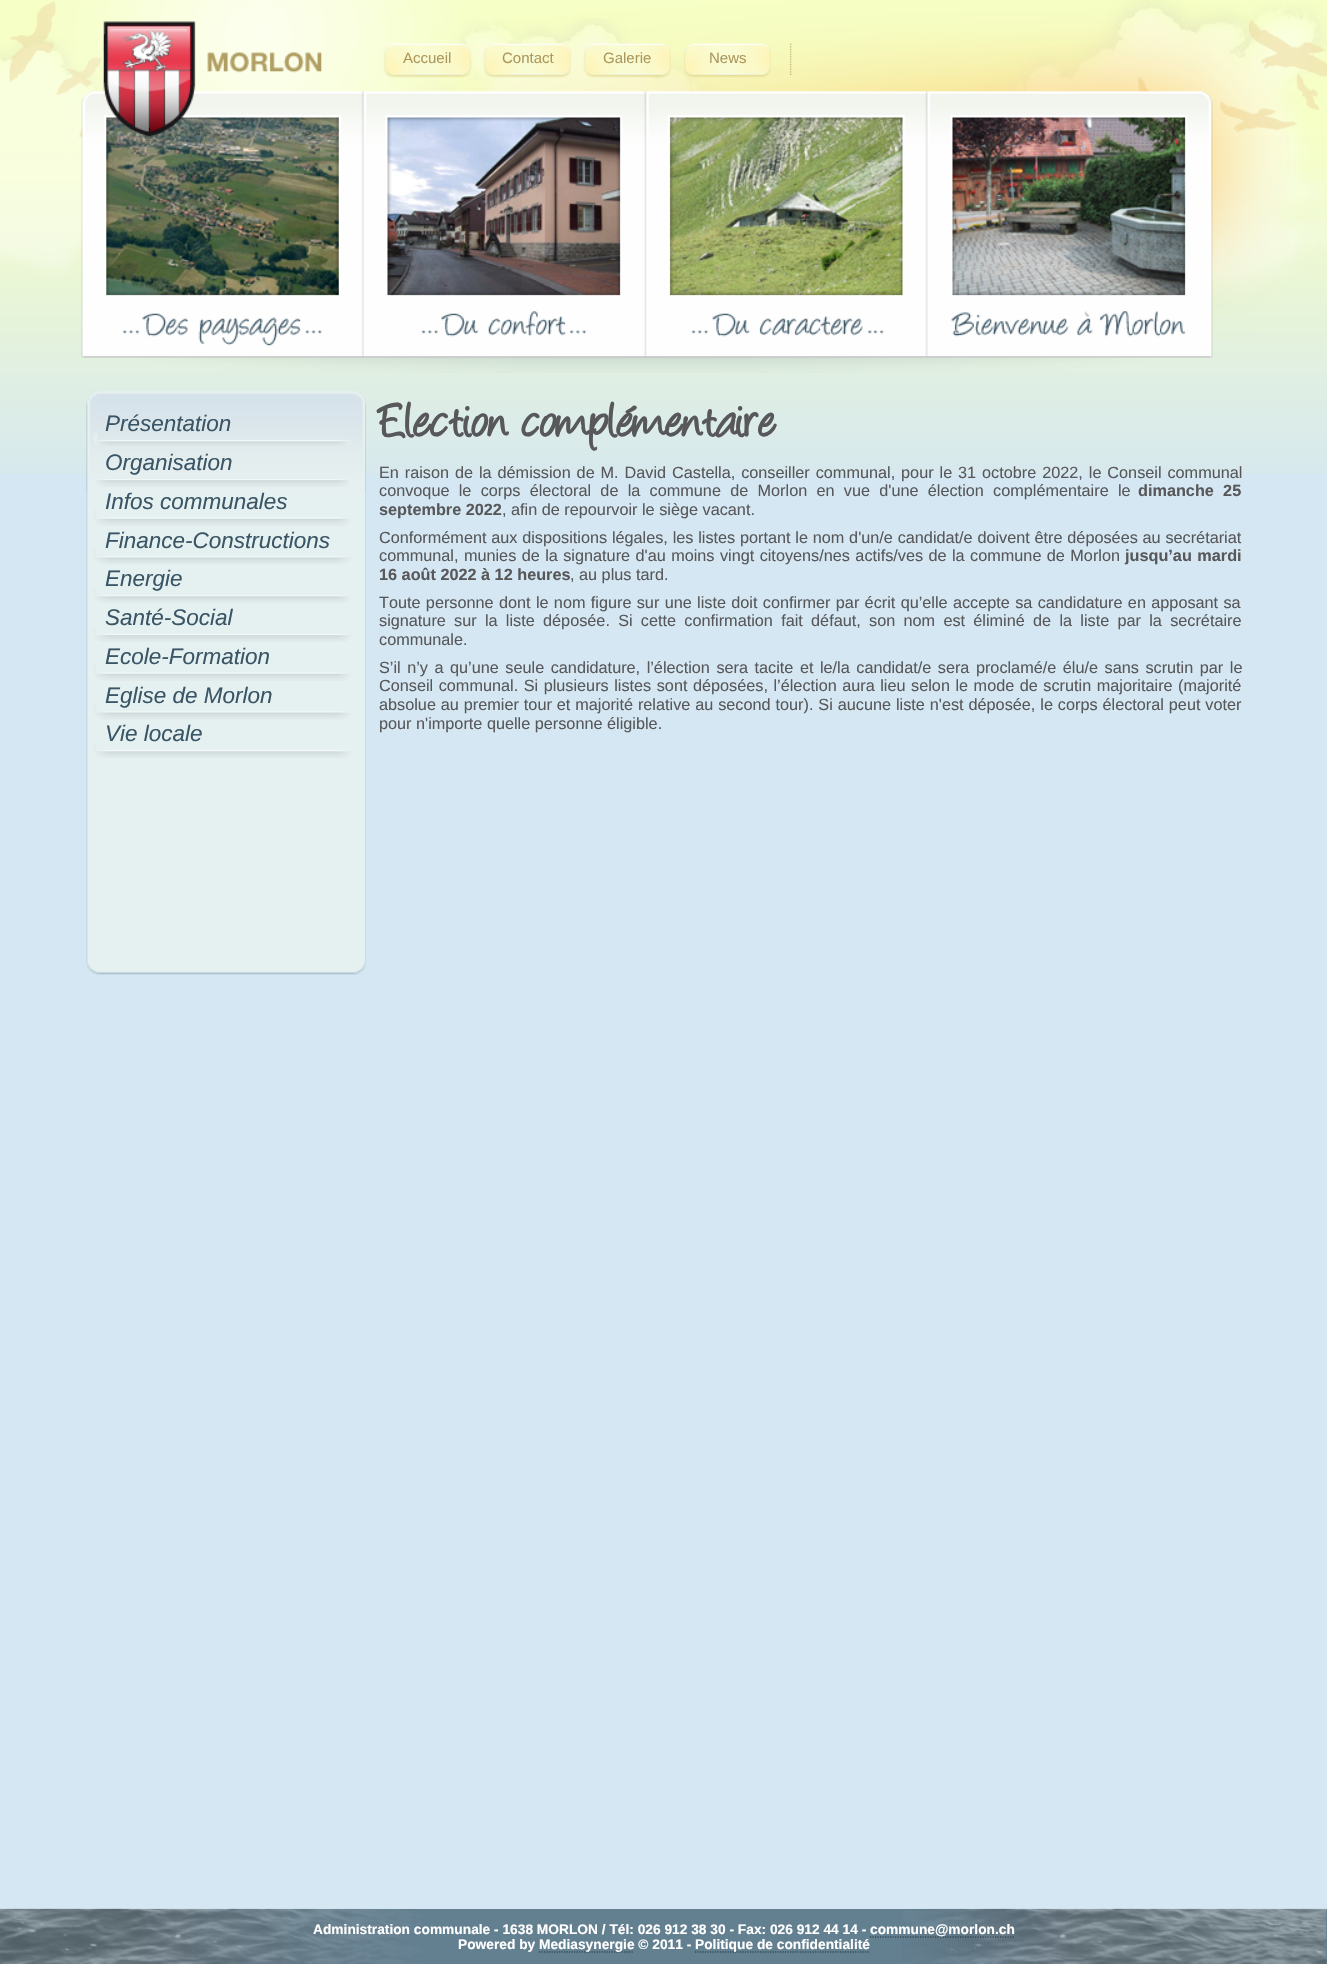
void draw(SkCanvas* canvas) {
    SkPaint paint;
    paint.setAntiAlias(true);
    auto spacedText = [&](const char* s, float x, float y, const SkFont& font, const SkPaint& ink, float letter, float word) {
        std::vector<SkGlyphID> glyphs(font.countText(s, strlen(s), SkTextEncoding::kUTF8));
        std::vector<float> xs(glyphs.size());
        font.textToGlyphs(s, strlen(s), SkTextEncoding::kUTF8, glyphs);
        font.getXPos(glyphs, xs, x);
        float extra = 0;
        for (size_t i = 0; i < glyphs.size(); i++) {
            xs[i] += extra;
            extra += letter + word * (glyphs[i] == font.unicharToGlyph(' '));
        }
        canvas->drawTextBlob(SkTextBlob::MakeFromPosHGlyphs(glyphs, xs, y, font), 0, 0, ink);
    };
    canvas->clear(0xFFD4E7F2);
    canvas->drawImageRect(SkImages::DeferredFromEncodedData(SkData::MakeFromFileName("img1.png")), SkRect::MakeXYWH(0, 0, 1327, 474), SkSamplingOptions());
    canvas->drawImageRect(SkImages::DeferredFromEncodedData(SkData::MakeFromFileName("img2.png")), SkRect::MakeXYWH(0, 0, 1327, 301), SkSamplingOptions());
    canvas->drawImageRect(SkImages::DeferredFromEncodedData(SkData::MakeFromFileName("img3.png")), SkRect::MakeXYWH(47, 0, 1242, 373), SkSamplingOptions());
    canvas->drawImageRect(SkImages::DeferredFromEncodedData(SkData::MakeFromFileName("img4.png")), SkRect::MakeXYWH(383, 43, 89, 35), SkSamplingOptions());
    SkFont font1(fontMgr->matchFamilyStyle("Liberation Sans", SkFontStyle::Normal()), 15);
    font1.setSubpixel(true);
    paint.setColor(0xFFAC985D);
    canvas->drawString("Accueil", 403, 63, font1, paint);
    canvas->drawImageRect(SkImages::DeferredFromEncodedData(SkData::MakeFromFileName("img5.png")), SkRect::MakeXYWH(483, 43, 89, 35), SkSamplingOptions());
    canvas->drawString("Contact", 502, 63, font1, paint);
    canvas->drawImageRect(SkImages::DeferredFromEncodedData(SkData::MakeFromFileName("img6.png")), SkRect::MakeXYWH(583, 43, 88, 35), SkSamplingOptions());
    canvas->drawString("Galerie", 603, 63, font1, paint);
    canvas->drawImageRect(SkImages::DeferredFromEncodedData(SkData::MakeFromFileName("img7.png")), SkRect::MakeXYWH(684, 43, 87, 35), SkSamplingOptions());
    canvas->drawString("News", 709, 63, font1, paint);
    canvas->drawImageRect(SkImages::DeferredFromEncodedData(SkData::MakeFromFileName("img8.png")), SkRect::MakeXYWH(789, 43, 3, 32), SkSamplingOptions());
    canvas->drawImageRect(SkImages::DeferredFromEncodedData(SkData::MakeFromFileName("img9.png")), SkRect::MakeXYWH(86, 391, 280, 14), SkSamplingOptions());
    canvas->drawImageRect(SkImages::DeferredFromEncodedData(SkData::MakeFromFileName("img10.png")), SkRect::MakeXYWH(86, 405, 280, 550), SkSamplingOptions());
    canvas->drawImageRect(SkImages::DeferredFromEncodedData(SkData::MakeFromFileName("img11.png")), SkRect::MakeXYWH(86, 405, 280, 88), SkSamplingOptions());
    canvas->drawImageRect(SkImages::DeferredFromEncodedData(SkData::MakeFromFileName("img12.png")), SkRect::MakeXYWH(93, 433, 259, 13), SkSamplingOptions());
    SkFont font2(fontMgr->matchFamilyStyle("Liberation Sans", SkFontStyle::Italic()), 22.5f);
    font2.setSubpixel(true);
    paint.setColor(0xFF3A5565);
    canvas->drawString("Présentation", 105, 431, font2, paint);
    canvas->drawImageRect(SkImages::DeferredFromEncodedData(SkData::MakeFromFileName("img13.png")), SkRect::MakeXYWH(95, 479, 254, 8), SkSamplingOptions());
    canvas->drawString("Organisation", 105, 470, font2, paint);
    canvas->drawImageRect(SkImages::DeferredFromEncodedData(SkData::MakeFromFileName("img14.png")), SkRect::MakeXYWH(93, 510, 258, 16), SkSamplingOptions());
    canvas->drawString("Infos communales", 105, 509, font2, paint);
    canvas->drawImageRect(SkImages::DeferredFromEncodedData(SkData::MakeFromFileName("img15.png")), SkRect::MakeXYWH(93, 549, 258, 16), SkSamplingOptions());
    canvas->drawString("Finance-Constructions", 105, 548, font2, paint);
    canvas->drawImageRect(SkImages::DeferredFromEncodedData(SkData::MakeFromFileName("img16.png")), SkRect::MakeXYWH(93, 588, 258, 15), SkSamplingOptions());
    canvas->drawString("Energie", 105, 586, font2, paint);
    canvas->drawImageRect(SkImages::DeferredFromEncodedData(SkData::MakeFromFileName("img17.png")), SkRect::MakeXYWH(93, 627, 258, 15), SkSamplingOptions());
    canvas->drawString("Santé-Social", 105, 625, font2, paint);
    canvas->drawImageRect(SkImages::DeferredFromEncodedData(SkData::MakeFromFileName("img14.png")), SkRect::MakeXYWH(93, 665, 258, 16), SkSamplingOptions());
    canvas->drawString("Ecole-Formation", 105, 664, font2, paint);
    canvas->drawImageRect(SkImages::DeferredFromEncodedData(SkData::MakeFromFileName("img15.png")), SkRect::MakeXYWH(93, 704, 258, 16), SkSamplingOptions());
    canvas->drawString("Eglise de Morlon", 105, 703, font2, paint);
    canvas->drawImageRect(SkImages::DeferredFromEncodedData(SkData::MakeFromFileName("img18.png")), SkRect::MakeXYWH(93, 743, 258, 15), SkSamplingOptions());
    canvas->drawString("Vie locale", 105, 741, font2, paint);
    canvas->drawImageRect(SkImages::DeferredFromEncodedData(SkData::MakeFromFileName("img19.png")), SkRect::MakeXYWH(86, 955, 280, 20), SkSamplingOptions());
    SkFont font3(fontMgr->matchFamilyStyle("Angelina", SkFontStyle::Bold()), 56.25f);
    font3.setSubpixel(true);
    paint.setColor(0xFF58585A);
    canvas->drawString("Election complémentaire", 379, 434, font3, paint);
    SkFont font4(fontMgr->matchFamilyStyle("Liberation Sans", SkFontStyle::Normal()), 16.25f);
    font4.setSubpixel(true);
    spacedText("En raison de la démission de M. David Castella, conseiller communal, pour le 31 octobre 2022, le Conseil communal", 379, 478, font4, paint, 0, 1.4f);
    spacedText("convoque le corps électoral de la commune de Morlon en vue d'une élection complémentaire le", 379, 496, font4, paint, 0, 4.75f);
    SkFont font5(fontMgr->matchFamilyStyle("Liberation Sans", SkFontStyle::Bold()), 16.25f);
    font5.setSubpixel(true);
    spacedText("dimanche 25", 1138, 496, font5, paint, 0, 4.75f);
    canvas->drawString("septembre 2022", 379, 515, font5, paint);
    canvas->drawString(", afin de repourvoir le siège vacant.", 502, 515, font4, paint);
    spacedText("Conformément aux dispositions légales, les listes portant le nom d'un/e candidat/e doivent être déposées au secrétariat", 379, 543, font4, paint, 0, 0.25f);
    spacedText("communal, munies de la signature d'au moins vingt citoyens/nes actifs/ves de la commune de Morlon", 379, 561, font4, paint, 0, 0.9f);
    spacedText("jusqu’au mardi", 1125, 561, font5, paint, 0, 1);
    canvas->drawString("16 août 2022 à 12 heures", 379, 580, font5, paint);
    canvas->drawString(", au plus tard.", 570, 580, font4, paint);
    spacedText("Toute personne dont le nom figure sur une liste doit confirmer par écrit qu’elle accepte sa candidature en apposant sa", 379, 608, font4, paint, 0, 0.8f);
    spacedText("signature sur la liste déposée. Si cette confirmation fait défaut, son nom est éliminé de la liste par la secrétaire", 379, 626, font4, paint, 0, 3.75f);
    canvas->drawString("communale.", 379, 645, font4, paint);
    spacedText("S’il n’y a qu’une seule candidature, l’élection sera tacite et le/la candidat/e sera proclamé/e élu/e sans scrutin par le", 379, 673, font4, paint, 0, 2);
    spacedText("Conseil communal. Si plusieurs listes sont déposées, l’élection aura lieu selon le mode de scrutin majoritaire (majorité", 379, 691, font4, paint, 0, 1);
    spacedText("absolue au premier tour et majorité relative au second tour). Si aucune liste n'est déposée, le corps électoral peut voter", 379, 710, font4, paint, 0, 0.4f);
    canvas->drawString("pour n'importe quelle personne éligible.", 379, 729, font4, paint);
    paint.setColor(0xFF638091);
    canvas->drawRect(SkRect::MakeXYWH(0, 1909, 1327, 55), paint);
    canvas->drawImageRect(SkImages::DeferredFromEncodedData(SkData::MakeFromFileName("img20.png")), SkRect::MakeXYWH(0, 1908, 422, 56), SkSamplingOptions());
    SkFont font6(fontMgr->matchFamilyStyle("Liberation Sans", SkFontStyle::Bold()), 13.75f);
    font6.setSubpixel(true);
    paint.setColor(0xFFFFFFFF);
    canvas->drawString("Administration communale - 1638 MORLON / Tél: 026 912 38 30 - Fax: 026 912 44 14 -", 313, 1934, font6, paint);
    canvas->drawImageRect(SkImages::DeferredFromEncodedData(SkData::MakeFromFileName("img21.png")), SkRect::MakeXYWH(902, 1908, 425, 56), SkSamplingOptions());
    paint.setStyle(SkPaint::kStroke_Style);
    paint.setStrokeWidth(1.2f);
    paint.setColor(0xFF1F2E37);
    paint.setPathEffect(SkDashPathEffect::Make({{1.25f, 1.25f}}, 0));
    canvas->drawPath(SkPathBuilder().moveTo(870, 1937).lineTo(1015, 1937).detach(), paint);
    paint.setPathEffect(nullptr);
    paint.setStyle(SkPaint::kFill_Style);
    paint.setColor(0xFFFFFFFF);
    canvas->drawString("commune@morlon.ch", 870, 1934, font6, paint);
    canvas->drawString("Powered by", 458, 1949, font6, paint);
    paint.setStyle(SkPaint::kStroke_Style);
    paint.setColor(0xFF1F2E37);
    paint.setPathEffect(SkDashPathEffect::Make({{1.25f, 1.25f}}, 0));
    canvas->drawPath(SkPathBuilder().moveTo(539, 1952).lineTo(634, 1952).detach(), paint);
    paint.setPathEffect(nullptr);
    paint.setStyle(SkPaint::kFill_Style);
    paint.setColor(0xFFFFFFFF);
    canvas->drawString("Mediasynergie © 2011 -", 539, 1949, font6, paint);
    paint.setStyle(SkPaint::kStroke_Style);
    paint.setColor(0xFF1F2E37);
    paint.setPathEffect(SkDashPathEffect::Make({{1.25f, 1.25f}}, 0));
    canvas->drawPath(SkPathBuilder().moveTo(695, 1952).lineTo(870, 1952).detach(), paint);
    paint.setPathEffect(nullptr);
    paint.setStyle(SkPaint::kFill_Style);
    paint.setColor(0xFFFFFFFF);
    canvas->drawString("Politique de confidentialité", 695, 1949, font6, paint);
}
